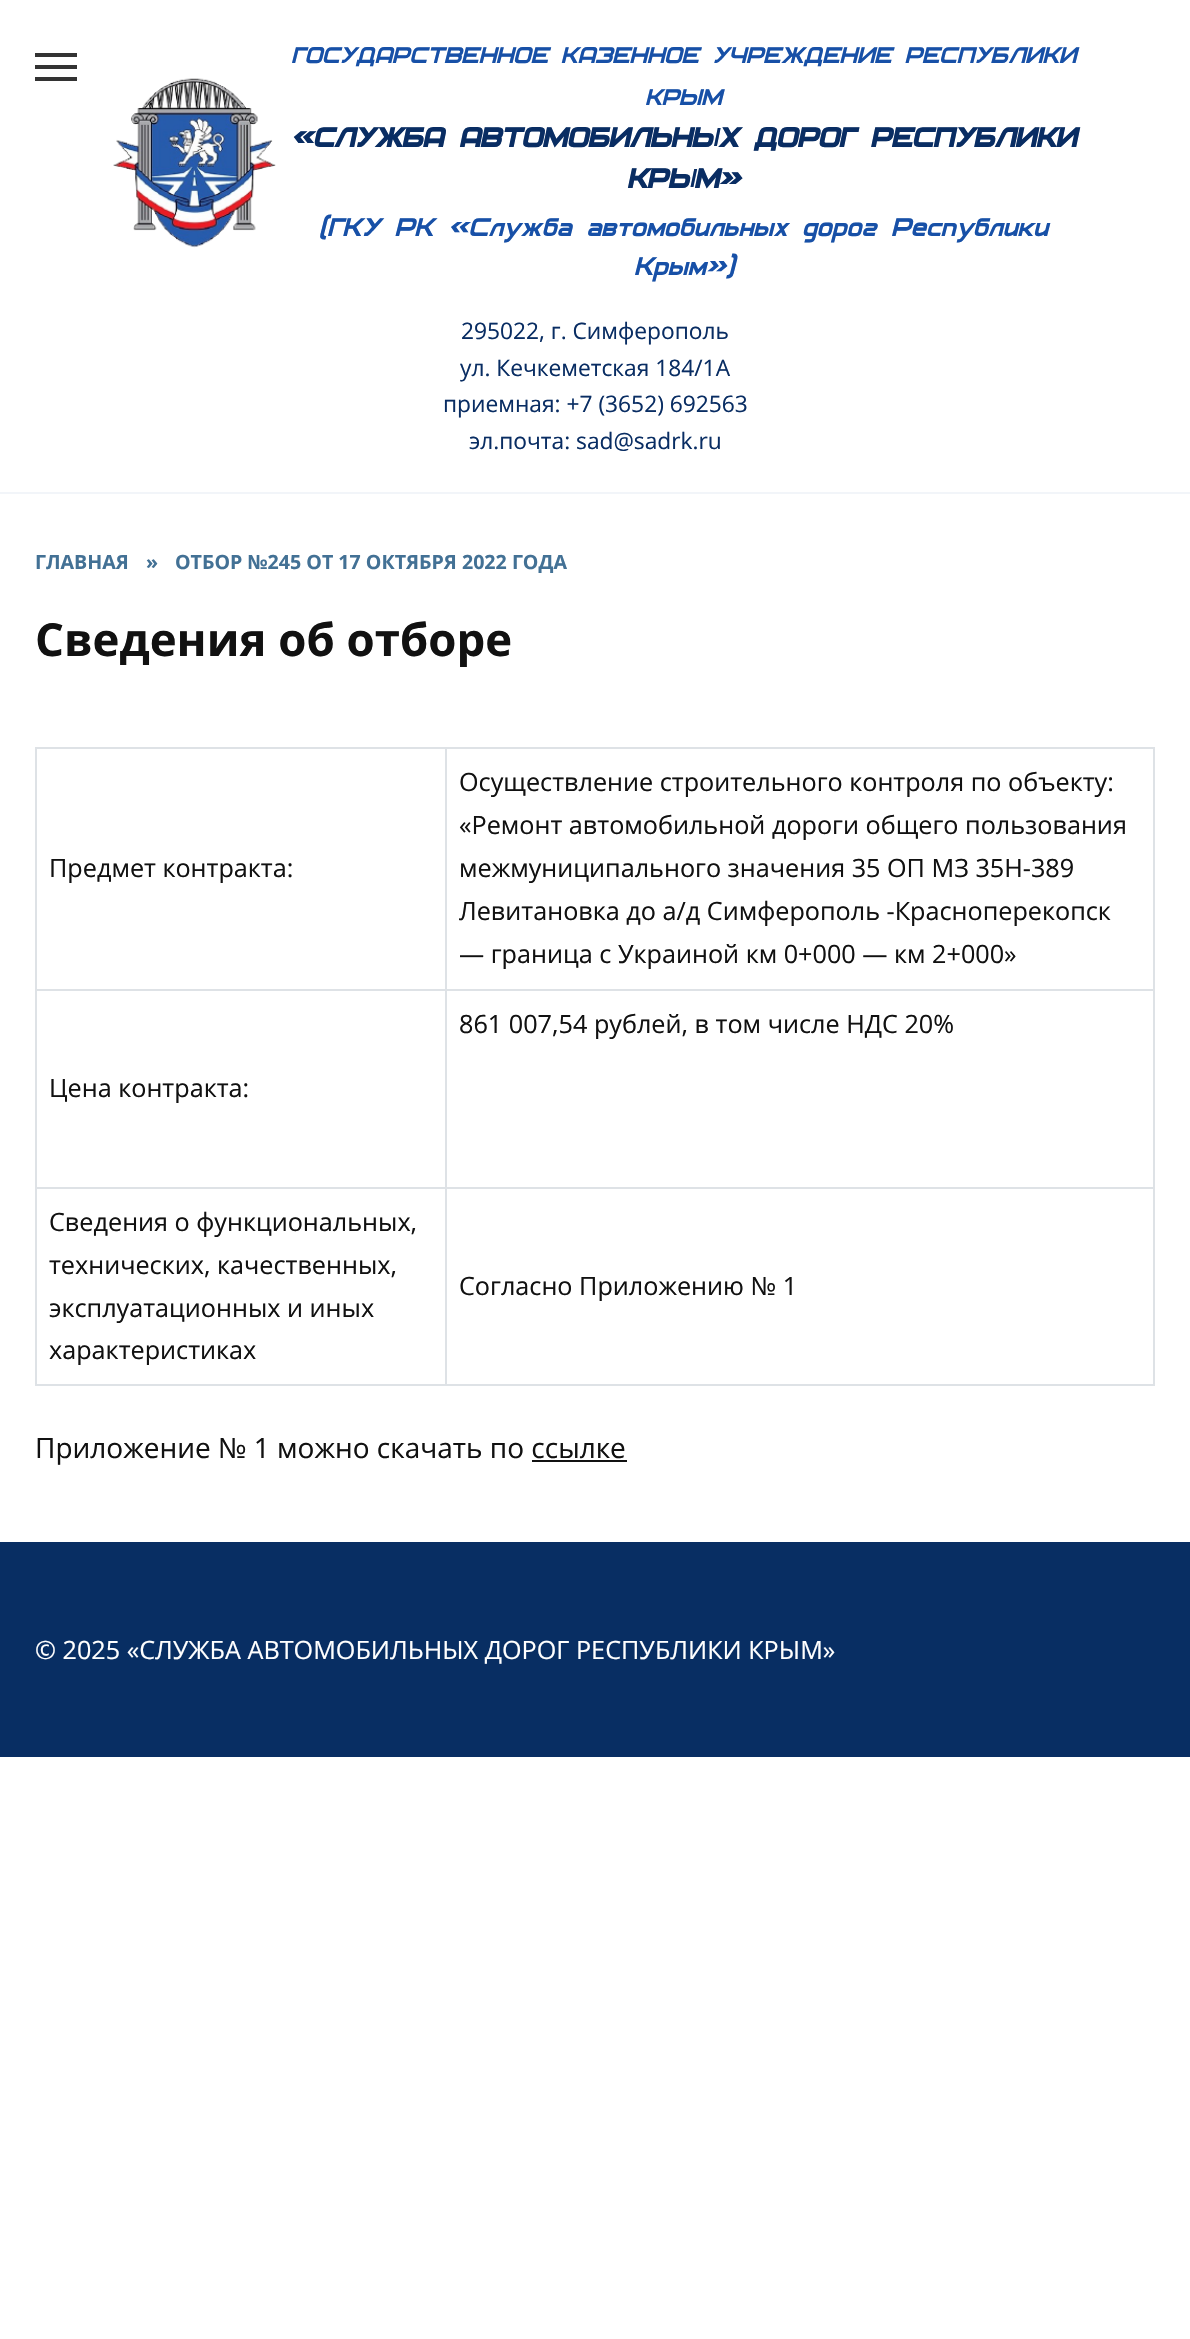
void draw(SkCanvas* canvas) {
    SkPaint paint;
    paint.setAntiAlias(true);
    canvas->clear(0xFFFFFFFF);
    paint.setColor(0xFFF2F5F9);
    canvas->drawRect(SkRect::MakeXYWH(0, 492, 1190, 2), paint);
    paint.setColor(0xFF333333);
    canvas->drawRect(SkRect::MakeXYWH(35, 53, 42, 4), paint);
    canvas->drawRect(SkRect::MakeXYWH(35, 65, 42, 4), paint);
    canvas->drawRect(SkRect::MakeXYWH(35, 77, 42, 4), paint);
    canvas->drawImageRect(SkImages::DeferredFromEncodedData(SkData::MakeFromFileName("img1.png")), SkRect::MakeXYWH(113, 78, 163, 170), SkSamplingOptions());
    SkFont font1(fontMgr->matchFamilyStyle("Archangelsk", SkFontStyle::Italic()), 26.25f);
    font1.setSubpixel(true);
    paint.setColor(0xFF1750A7);
    canvas->drawString("ГОСУДАРСТВЕННОЕ КАЗЕННОЕ УЧРЕЖДЕНИЕ РЕСПУБЛИКИ", 292, 63, font1, paint);
    canvas->drawString("КРЫМ", 646, 105, font1, paint);
    SkFont font2(fontMgr->matchFamilyStyle("Archangelsk", SkFontStyle::BoldItalic()), 31.5f);
    font2.setSubpixel(true);
    paint.setColor(0xFF092D63);
    canvas->drawString("«СЛУЖБА АВТОМОБИЛЬНЫХ ДОРОГ РЕСПУБЛИКИ", 292, 147, font2, paint);
    canvas->drawString("КРЫМ»", 628, 188, font2, paint);
    SkFont font3(fontMgr->matchFamilyStyle("Archangelsk", SkFontStyle::Italic()), 29.75f);
    font3.setSubpixel(true);
    paint.setColor(0xFF1750A7);
    canvas->drawString("(ГКУ РК «Служба автомобильных дорог Республики", 320, 236, font3, paint);
    canvas->drawString("Крым»)", 635, 275, font3, paint);
    SkFont font4(fontMgr->matchFamilyStyle("Open Sans", SkFontStyle::Normal()), 22.75f);
    font4.setSubpixel(true);
    paint.setColor(0xFF092D63);
    canvas->drawString("295022, г. Симферополь", 461, 339, font4, paint);
    canvas->drawString("ул. Кечкеметская 184/1А", 460, 376, font4, paint);
    canvas->drawString("приемная: +7 (3652) 692563", 443, 412, font4, paint);
    canvas->drawString("эл.почта: sad@sadrk.ru", 469, 449, font4, paint);
    SkFont font5(fontMgr->matchFamilyStyle("Open Sans", SkFontStyle::Bold()), 19.6f);
    font5.setSubpixel(true);
    paint.setColor(0xFF437195);
    canvas->drawString("ГЛАВНАЯ", 35, 569, font5, paint);
    canvas->drawString("»", 146, 569, font5, paint);
    canvas->drawString("ОТБОР №245 ОТ 17 ОКТЯБРЯ 2022 ГОДА", 175, 569, font5, paint);
    SkFont font6(fontMgr->matchFamilyStyle("Open Sans", SkFontStyle::Bold()), 45.5f);
    font6.setSubpixel(true);
    paint.setColor(0xFF111111);
    canvas->drawString("Сведения об отборе", 35, 656, font6, paint);
    paint.setColor(0xFFDEE2E6);
    canvas->drawRect(SkRect::MakeXYWH(35, 747, 1120, 2), paint);
    canvas->drawRect(SkRect::MakeXYWH(1153, 747, 2, 639), paint);
    canvas->drawRect(SkRect::MakeXYWH(35, 1384, 1120, 2), paint);
    canvas->drawRect(SkRect::MakeXYWH(35, 747, 2, 639), paint);
    SkFont font7(fontMgr->matchFamilyStyle("Open Sans", SkFontStyle::Normal()), 25.2f);
    font7.setSubpixel(true);
    paint.setColor(0xFF111111);
    canvas->drawString("Предмет контракта:", 49, 877, font7, paint);
    paint.setColor(0xFFDEE2E6);
    canvas->drawRect(SkRect::MakeXYWH(445, 989, 710, 2), paint);
    canvas->drawRect(SkRect::MakeXYWH(445, 1187, 710, 2), paint);
    canvas->drawRect(SkRect::MakeXYWH(445, 1187, 2, 199), paint);
    canvas->drawRect(SkRect::MakeXYWH(35, 1187, 411, 2), paint);
    canvas->drawRect(SkRect::MakeXYWH(445, 989, 2, 199), paint);
    canvas->drawRect(SkRect::MakeXYWH(35, 989, 411, 2), paint);
    canvas->drawRect(SkRect::MakeXYWH(445, 747, 2, 244), paint);
    paint.setColor(0xFF111111);
    canvas->drawString("Осуществление строительного контроля по объекту:", 459, 791, font7, paint);
    canvas->drawString("«Ремонт автомобильной дороги общего пользования", 459, 834, font7, paint);
    canvas->drawString("межмуниципального значения 35 ОП МЗ 35Н-389", 459, 877, font7, paint);
    canvas->drawString("Левитановка до а/д Симферополь -Красноперекопск", 459, 920, font7, paint);
    canvas->drawString("— граница с Украиной км 0+000 — км 2+000»", 459, 963, font7, paint);
    canvas->drawString("861 007,54 рублей, в том числе НДС 20%", 459, 1033, font7, paint);
    canvas->drawString("Цена контракта:", 49, 1097, font7, paint);
    canvas->drawString("Сведения о функциональных,", 49, 1231, font7, paint);
    canvas->drawString("технических, качественных,", 49, 1274, font7, paint);
    canvas->drawString("эксплуатационных и иных", 49, 1317, font7, paint);
    canvas->drawString("характеристиках", 49, 1359, font7, paint);
    canvas->drawString("Согласно Приложению № 1", 459, 1295, font7, paint);
    SkFont font8(fontMgr->matchFamilyStyle("Open Sans", SkFontStyle::Normal()), 28);
    font8.setSubpixel(true);
    canvas->drawString("Приложение № 1 можно скачать по ссылке", 35, 1458, font8, paint);
    canvas->drawRect(SkRect::MakeXYWH(532, 1460, 95, 2), paint);
    paint.setColor(0xFF082E63);
    canvas->drawRect(SkRect::MakeXYWH(0, 1542, 1190, 215), paint);
    paint.setColor(0xFFFFFFFF);
    canvas->drawString("© 2025 «СЛУЖБА АВТОМОБИЛЬНЫХ ДОРОГ РЕСПУБЛИКИ КРЫМ»", 35, 1659, font7, paint);
}
